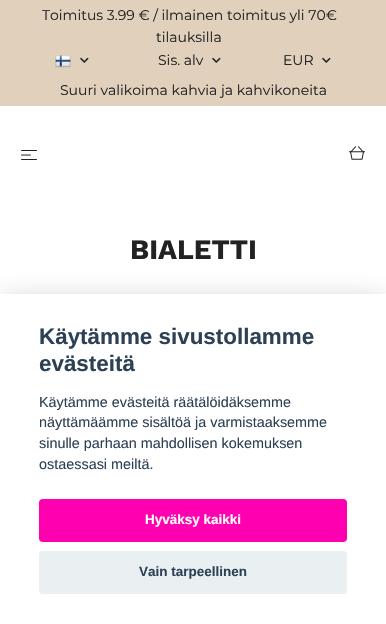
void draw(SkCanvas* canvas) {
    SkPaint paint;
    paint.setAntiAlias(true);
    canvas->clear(0xFFFFFFFF);
    paint.setColor(0xFFE0D0BC);
    canvas->drawRect(SkRect::MakeXYWH(0, 0, 386, 106), paint);
    SkFont font1(fontMgr->matchFamilyStyle("Montserrat", SkFontStyle::Normal()), 14);
    font1.setSubpixel(true);
    paint.setColor(0xFF222222);
    canvas->drawString("Toimitus 3.99 € / ilmainen toimitus yli 70€", 42, 20, font1, paint);
    canvas->drawString("tilauksilla", 156, 42, font1, paint);
    canvas->drawImageRect(SkImages::DeferredFromEncodedData(SkData::MakeFromFileName("img1.png")), SkRect::MakeXYWH(55, 55, 16, 13), SkSamplingOptions());
    canvas->drawImageRect(SkImages::DeferredFromEncodedData(SkData::MakeFromFileName("img2.png")), SkRect::MakeXYWH(80, 57, 9, 6), SkSamplingOptions());
    canvas->drawString("Sis. alv", 158, 65, font1, paint);
    canvas->drawImageRect(SkImages::DeferredFromEncodedData(SkData::MakeFromFileName("img2.png")), SkRect::MakeXYWH(212, 57, 9, 6), SkSamplingOptions());
    canvas->drawString("EUR", 283, 65, font1, paint);
    canvas->drawImageRect(SkImages::DeferredFromEncodedData(SkData::MakeFromFileName("img2.png")), SkRect::MakeXYWH(322, 57, 9, 6), SkSamplingOptions());
    canvas->drawString("Suuri valikoima kahvia ja kahvikoneita", 60, 95, font1, paint);
    canvas->drawImageRect(SkImages::DeferredFromEncodedData(SkData::MakeFromFileName("img3.png")), SkRect::MakeXYWH(21, 150, 16, 10), SkSamplingOptions());
    canvas->drawImageRect(SkImages::DeferredFromEncodedData(SkData::MakeFromFileName("img4.png")), SkRect::MakeXYWH(349, 146, 16, 14), SkSamplingOptions());
    SkFont font2(fontMgr->matchFamilyStyle("Work Sans", SkFontStyle::Bold()), 28);
    font2.setSubpixel(true);
    canvas->drawString("BIALETTI", 130, 259, font2, paint);
    paint.setColor(0x47020203);
    paint.setMaskFilter(SkMaskFilter::MakeBlur(kNormal_SkBlurStyle, 15));
    canvas->drawRect(SkRect::MakeXYWH(0, 304, 386, 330), paint);
    paint.setMaskFilter(nullptr);
    paint.setColor(0xFFFFFFFF);
    canvas->drawRect(SkRect::MakeXYWH(0, 294, 386, 330), paint);
    SkFont font3(fontMgr->matchFamilyStyle("Liberation Sans", SkFontStyle::Bold()), 22.4f);
    font3.setSubpixel(true);
    paint.setColor(0xFF2D4156);
    canvas->drawString("Käytämme sivustollamme", 39, 344, font3, paint);
    canvas->drawString("evästeitä", 39, 371, font3, paint);
    SkFont font4(fontMgr->matchFamilyStyle("Liberation Sans", SkFontStyle::Normal()), 14.4f);
    font4.setSubpixel(true);
    canvas->drawString("Käytämme evästeitä räätälöidäksemme", 39, 407, font4, paint);
    canvas->drawString("näyttämäämme sisältöä ja varmistaaksemme", 39, 427, font4, paint);
    canvas->drawString("sinulle parhaan mahdollisen kokemuksen", 39, 448, font4, paint);
    canvas->drawString("ostaessasi meiltä.", 39, 469, font4, paint);
    paint.setColor(0xFFFF00B1);
    canvas->drawRoundRect(SkRect::MakeXYWH(39, 499, 308, 43), 4, 4, paint);
    SkFont font5(fontMgr->matchFamilyStyle("Liberation Sans", SkFontStyle::Bold()), 13.5f);
    font5.setSubpixel(true);
    paint.setColor(0xFFFFFFFF);
    canvas->drawString("Hyväksy kaikki", 145, 524, font5, paint);
    paint.setColor(0xFFEAEFF2);
    canvas->drawRoundRect(SkRect::MakeXYWH(39, 551, 308, 43), 4, 4, paint);
    paint.setColor(0xFF2D4156);
    canvas->drawString("Vain tarpeellinen", 139, 576, font5, paint);
}
